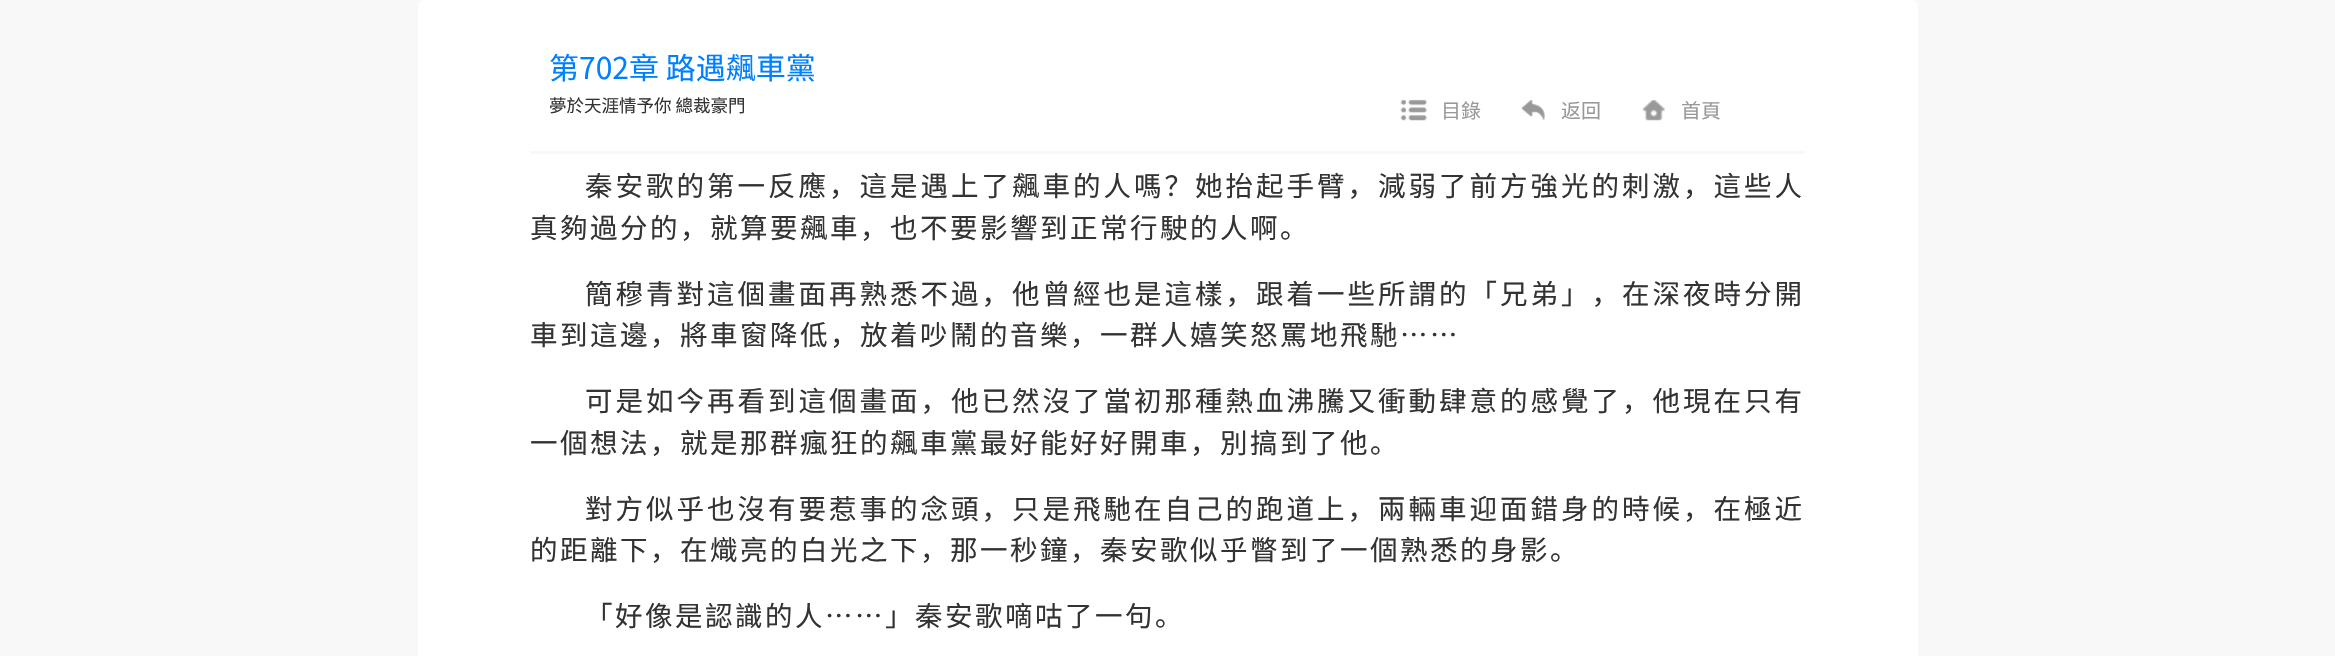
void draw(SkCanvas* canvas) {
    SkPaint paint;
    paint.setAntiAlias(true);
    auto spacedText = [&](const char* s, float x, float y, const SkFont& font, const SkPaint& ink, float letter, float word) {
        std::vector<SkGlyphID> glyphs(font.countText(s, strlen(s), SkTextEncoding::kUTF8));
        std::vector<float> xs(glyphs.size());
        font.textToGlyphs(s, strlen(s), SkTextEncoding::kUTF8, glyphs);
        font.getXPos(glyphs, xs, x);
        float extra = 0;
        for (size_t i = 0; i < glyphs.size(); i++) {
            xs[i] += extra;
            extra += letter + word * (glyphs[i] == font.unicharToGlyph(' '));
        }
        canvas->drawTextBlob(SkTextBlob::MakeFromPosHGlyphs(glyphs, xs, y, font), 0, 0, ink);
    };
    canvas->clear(0xFFF8F8F8);
    paint.setColor(0xFFFFFFFF);
    canvas->drawRoundRect(SkRect::MakeXYWH(418, 0, 1500, 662), 6, 6, paint);
    paint.setColor(0xFFF8F8F8);
    canvas->drawRect(SkRect::MakeXYWH(530, 151, 1275, 3), paint);
    SkFont font1(fontMgr->matchFamilyStyle("Noto Sans CJK SC", SkFontStyle::Normal()), 30);
    font1.setSubpixel(true);
    paint.setColor(0xFF007FFF);
    canvas->drawString("第702章 路遇飆車黨", 549, 79, font1, paint);
    SkFont font2(fontMgr->matchFamilyStyle("Noto Sans CJK SC", SkFontStyle::Normal()), 17.5f);
    font2.setSubpixel(true);
    paint.setColor(0xFF333333);
    canvas->drawString("夢於天涯情予你 總裁豪門", 549, 112, font2, paint);
    canvas->drawImageRect(SkImages::DeferredFromEncodedData(SkData::MakeFromFileName("img1.png")), SkRect::MakeXYWH(1400, 99, 27, 22), SkSamplingOptions());
    SkFont font3(fontMgr->matchFamilyStyle("Noto Sans CJK SC", SkFontStyle::Normal()), 20);
    font3.setSubpixel(true);
    paint.setColor(0xFF999999);
    canvas->drawString("目錄", 1441, 118, font3, paint);
    canvas->drawImageRect(SkImages::DeferredFromEncodedData(SkData::MakeFromFileName("img2.png")), SkRect::MakeXYWH(1521, 100, 24, 21), SkSamplingOptions());
    canvas->drawString("返回", 1561, 118, font3, paint);
    canvas->drawImageRect(SkImages::DeferredFromEncodedData(SkData::MakeFromFileName("img3.png")), SkRect::MakeXYWH(1642, 100, 23, 21), SkSamplingOptions());
    canvas->drawString("首頁", 1681, 118, font3, paint);
    SkFont font4(fontMgr->matchFamilyStyle("Noto Sans CJK SC", SkFontStyle::Normal()), 27.5f);
    font4.setSubpixel(true);
    paint.setColor(0xFF333333);
    spacedText("秦安歌的第一反應，這是遇上了飆車的人嗎？她抬起手臂，減弱了前方強光的刺激，這些人", 585, 196, font4, paint, 3, 0);
    spacedText("真夠過分的，就算要飆車，也不要影響到正常行駛的人啊。", 530, 238, font4, paint, 2.5f, 0);
    spacedText("簡穆青對這個畫面再熟悉不過，他曾經也是這樣，跟着一些所謂的「兄弟」，在深夜時分開", 585, 304, font4, paint, 3, 0);
    spacedText("車到這邊，將車窗降低，放着吵鬧的音樂，一群人嬉笑怒罵地飛馳……", 530, 345, font4, paint, 2.5f, 0);
    spacedText("可是如今再看到這個畫面，他已然沒了當初那種熱血沸騰又衝動肆意的感覺了，他現在只有", 585, 411, font4, paint, 3, 0);
    spacedText("一個想法，就是那群瘋狂的飆車黨最好能好好開車，別搞到了他。", 530, 453, font4, paint, 2.5f, 0);
    spacedText("對方似乎也沒有要惹事的念頭，只是飛馳在自己的跑道上，兩輛車迎面錯身的時候，在極近", 585, 519, font4, paint, 3, 0);
    spacedText("的距離下，在熾亮的白光之下，那一秒鐘，秦安歌似乎瞥到了一個熟悉的身影。", 530, 560, font4, paint, 2.5f, 0);
    spacedText("「好像是認識的人……」秦安歌嘀咕了一句。", 585, 626, font4, paint, 2.5f, 0);
}
